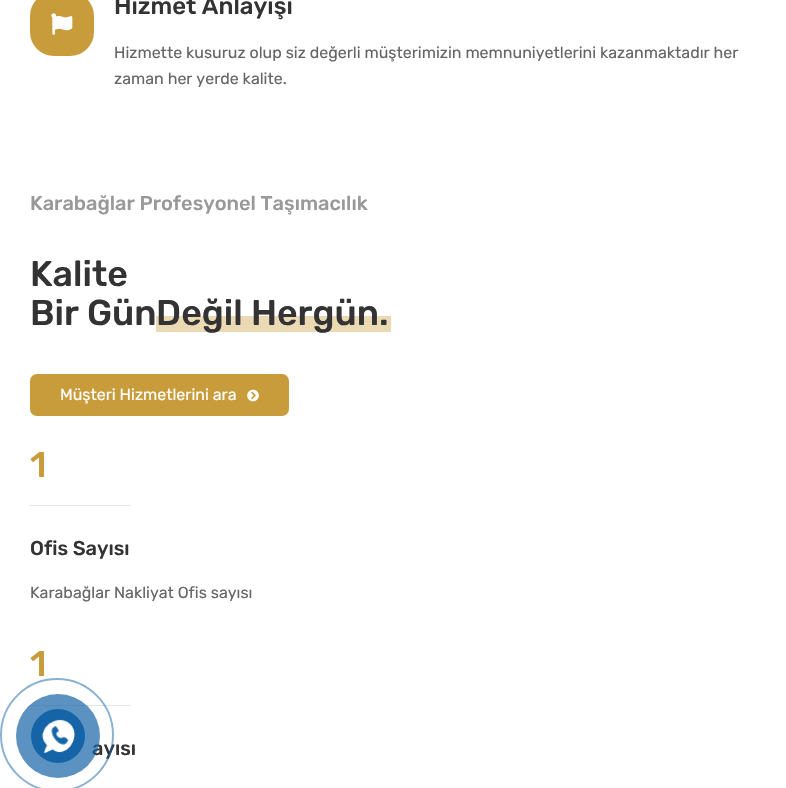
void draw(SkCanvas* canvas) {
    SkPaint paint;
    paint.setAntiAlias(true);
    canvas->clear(0xFFFFFFFF);
    paint.setColor(0xFFC99C3B);
    canvas->drawRoundRect(SkRect::MakeXYWH(30, -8, 64, 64), 24, 24, paint);
    canvas->drawImageRect(SkImages::DeferredFromEncodedData(SkData::MakeFromFileName("img1.png")), SkRect::MakeXYWH(51, 13, 22, 22), SkSamplingOptions());
    SkFont font1(fontMgr->matchFamilyStyle("Rubik", SkFontStyle(500, SkFontStyle::kNormal_Width, SkFontStyle::kUpright_Slant)), 24);
    font1.setSubpixel(true);
    paint.setColor(0xFF333333);
    canvas->drawString("Hizmet Anlayışı", 114, 14, font1, paint);
    SkFont font2(fontMgr->matchFamilyStyle("Rubik", SkFontStyle::Normal()), 16);
    font2.setSubpixel(true);
    paint.setColor(0xFF666666);
    canvas->drawString("Hizmette kusuruz olup siz değerli müşterimizin memnuniyetlerini kazanmaktadır her", 114, 58, font2, paint);
    canvas->drawString("zaman her yerde kalite.", 114, 84, font2, paint);
    SkFont font3(fontMgr->matchFamilyStyle("Rubik", SkFontStyle(500, SkFontStyle::kNormal_Width, SkFontStyle::kUpright_Slant)), 20);
    font3.setSubpixel(true);
    paint.setColor(0xFF999999);
    canvas->drawString("Karabağlar Profesyonel Taşımacılık", 30, 210, font3, paint);
    SkFont font4(fontMgr->matchFamilyStyle("Rubik", SkFontStyle(500, SkFontStyle::kNormal_Width, SkFontStyle::kUpright_Slant)), 35.75f);
    font4.setSubpixel(true);
    paint.setColor(0xFF333333);
    canvas->drawString("Kalite", 30, 286, font4, paint);
    canvas->drawString("Bir Gün", 30, 325, font4, paint);
    paint.setColor(0xFFEAD9B3);
    canvas->drawRect(SkRect::MakeXYWH(156, 316, 235, 16), paint);
    paint.setColor(0xFF333333);
    canvas->drawString("Değil Hergün.", 156, 325, font4, paint);
    paint.setColor(0xFFC99C3B);
    canvas->drawRoundRect(SkRect::MakeXYWH(30, 374, 259, 42), 7, 7, paint);
    paint.setColor(0xFFFFFFFF);
    canvas->drawString("Müşteri Hizmetlerini ara", 60, 400, font2, paint);
    canvas->drawImageRect(SkImages::DeferredFromEncodedData(SkData::MakeFromFileName("img2.png")), SkRect::MakeXYWH(247, 389, 12, 13), SkSamplingOptions());
    paint.setColor(0xFFC99C3B);
    canvas->drawString("1", 30, 477, font4, paint);
    paint.setColor(0xFFE5E5E5);
    canvas->drawRect(SkRect::MakeXYWH(30, 505, 100, 1), paint);
    paint.setColor(0xFF333333);
    canvas->drawString("Ofis Sayısı", 30, 555, font3, paint);
    paint.setColor(0xFF666666);
    canvas->drawString("Karabağlar Nakliyat Ofis sayısı", 30, 598, font2, paint);
    paint.setColor(0xFFC99C3B);
    canvas->drawString("1", 30, 676, font4, paint);
    paint.setColor(0xFFE5E5E5);
    canvas->drawRect(SkRect::MakeXYWH(30, 705, 100, 1), paint);
    paint.setColor(0xFF333333);
    canvas->drawString("ayısı", 92, 755, font3, paint);
    paint.setStyle(SkPaint::kStroke_Style);
    paint.setStrokeWidth(2);
    paint.setColor(0x801564A7);
    canvas->drawCircle(57, 735, 56, paint);
    paint.setStyle(SkPaint::kFill_Style);
    paint.setColor(0xB31564A7);
    canvas->drawCircle(58, 736, 42, paint);
    paint.setColor(0xFF1564A7);
    canvas->drawCircle(58, 736, 27, paint);
    canvas->drawImageRect(SkImages::DeferredFromEncodedData(SkData::MakeFromFileName("img3.png")), SkRect::MakeXYWH(42, 719, 33, 34), SkSamplingOptions());
}
